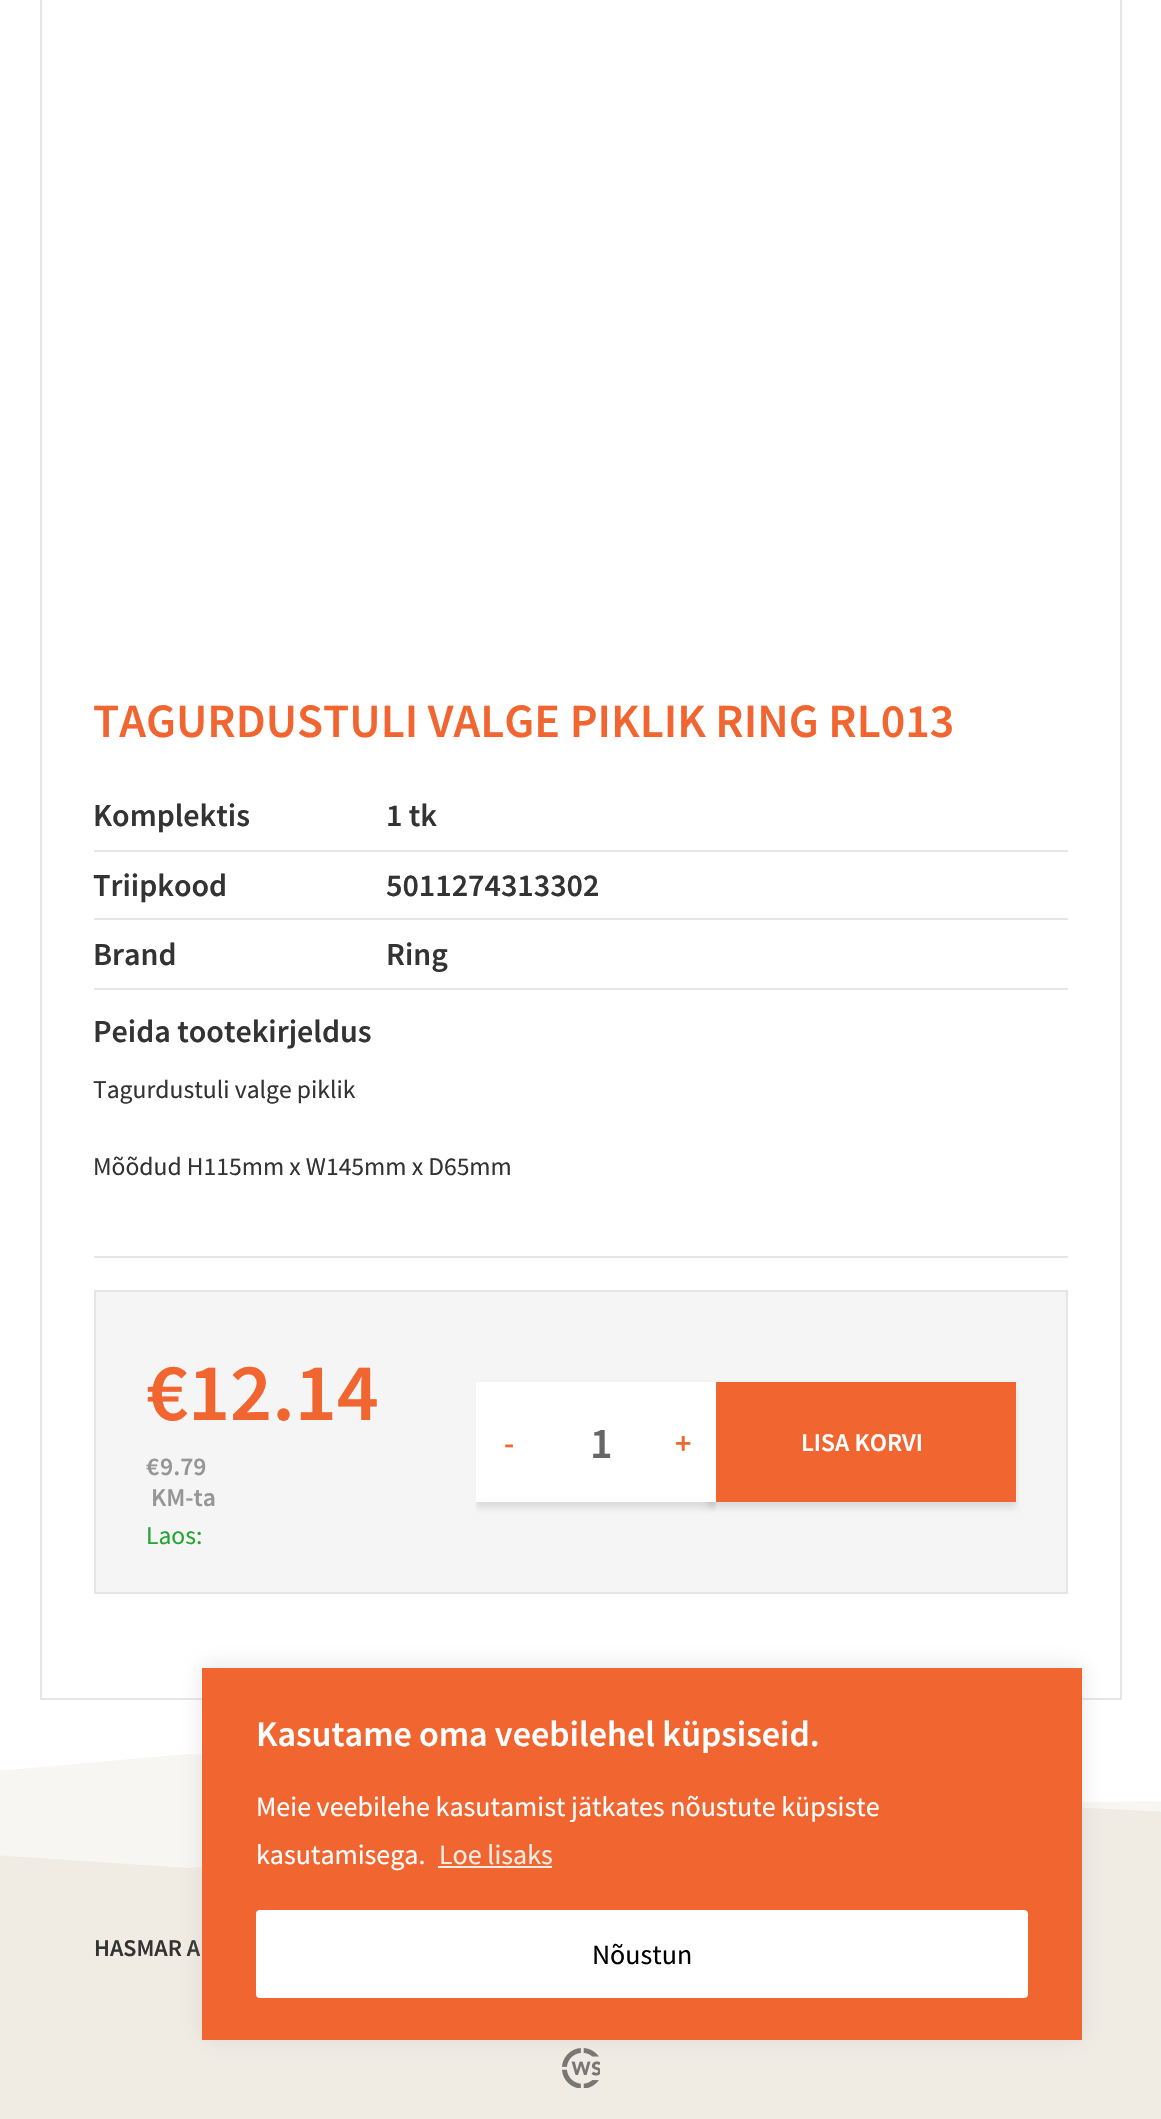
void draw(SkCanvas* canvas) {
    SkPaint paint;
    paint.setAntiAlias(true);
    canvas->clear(0xFFFFFFFF);
    paint.setStyle(SkPaint::kStroke_Style);
    paint.setStrokeWidth(2);
    paint.setColor(0xFFE6E6E6);
    canvas->drawRect(SkRect::MakeXYWH(41, -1, 1080, 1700), paint);
    SkFont font1(fontMgr->matchFamilyStyle("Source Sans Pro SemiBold", SkFontStyle(600, SkFontStyle::kNormal_Width, SkFontStyle::kUpright_Slant)), 47.9f);
    font1.setSubpixel(true);
    paint.setStyle(SkPaint::kFill_Style);
    paint.setColor(0xFFF16530);
    canvas->drawString("TAGURDUSTULI VALGE PIKLIK RING RL013", 93, 737, font1, paint);
    paint.setColor(0xFFE6E6E6);
    canvas->drawRect(SkRect::MakeXYWH(94, 850, 974, 2), paint);
    SkFont font2(fontMgr->matchFamilyStyle("Source Sans Pro SemiBold", SkFontStyle(600, SkFontStyle::kNormal_Width, SkFontStyle::kUpright_Slant)), 32);
    font2.setSubpixel(true);
    paint.setColor(0xFF333333);
    canvas->drawString("Komplektis", 93, 826, font2, paint);
    canvas->drawString("1 tk", 386, 826, font2, paint);
    paint.setColor(0xFFE6E6E6);
    canvas->drawRect(SkRect::MakeXYWH(94, 918, 974, 2), paint);
    paint.setColor(0xFF333333);
    canvas->drawString("Triipkood", 93, 896, font2, paint);
    canvas->drawString("5011274313302", 386, 896, font2, paint);
    paint.setColor(0xFFE6E6E6);
    canvas->drawRect(SkRect::MakeXYWH(94, 988, 974, 2), paint);
    paint.setColor(0xFF333333);
    canvas->drawString("Brand", 93, 965, font2, paint);
    canvas->drawString("Ring", 386, 965, font2, paint);
    canvas->drawString("Peida tootekirjeldus", 93, 1042, font2, paint);
    paint.setColor(0xFFE6E6E6);
    canvas->drawRect(SkRect::MakeXYWH(94, 1256, 974, 2), paint);
    SkFont font3(fontMgr->matchFamilyStyle("Source Sans Pro", SkFontStyle::Normal()), 25.6f);
    font3.setSubpixel(true);
    paint.setColor(0xFF333333);
    canvas->drawString("Tagurdustuli valge piklik", 93, 1098, font3, paint);
    canvas->drawString("Mõõdud H115mm x W145mm x D65mm", 93, 1175, font3, paint);
    paint.setColor(0xFFF5F5F5);
    canvas->drawRect(SkRect::MakeXYWH(95, 1291, 972, 302), paint);
    paint.setStyle(SkPaint::kStroke_Style);
    paint.setColor(0xFFE5E5E5);
    canvas->drawRect(SkRect::MakeXYWH(95, 1291, 972, 302), paint);
    SkFont font4(fontMgr->matchFamilyStyle("Source Sans Pro SemiBold", SkFontStyle(600, SkFontStyle::kNormal_Width, SkFontStyle::kUpright_Slant)), 82);
    font4.setSubpixel(true);
    paint.setStyle(SkPaint::kFill_Style);
    paint.setColor(0xFFF16530);
    canvas->drawString("€", 146, 1420, font4, paint);
    canvas->drawString("12.14", 188, 1420, font4, paint);
    SkFont font5(fontMgr->matchFamilyStyle("Source Sans Pro SemiBold", SkFontStyle(600, SkFontStyle::kNormal_Width, SkFontStyle::kUpright_Slant)), 25.6f);
    font5.setSubpixel(true);
    paint.setColor(0xFF969696);
    canvas->drawString("€", 146, 1475, font5, paint);
    canvas->drawString("9.79", 160, 1475, font5, paint);
    canvas->drawString("KM-ta", 151, 1506, font5, paint);
    paint.setColor(0xFF25A534);
    canvas->drawString("Laos:", 146, 1544, font3, paint);
    canvas->save();
    canvas->clipRect(SkRect::MakeXYWH(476, 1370, 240, 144));
    paint.setColor(0x1A000000);
    paint.setMaskFilter(SkMaskFilter::MakeBlur(kNormal_SkBlurStyle, 3));
    canvas->drawRect(SkRect::MakeXYWH(476, 1388, 240, 120), paint);
    paint.setMaskFilter(nullptr);
    canvas->restore();
    paint.setColor(0xFFFFFFFF);
    canvas->drawRect(SkRect::MakeXYWH(476, 1382, 174, 120), paint);
    paint.setColor(0xFFF16530);
    canvas->drawString("-", 504, 1454, font2, paint);
    SkFont font6(fontMgr->matchFamilyStyle("Source Sans Pro SemiBold", SkFontStyle(600, SkFontStyle::kNormal_Width, SkFontStyle::kUpright_Slant)), 44);
    font6.setSubpixel(true);
    paint.setColor(0xFF666666);
    canvas->drawString("1", 590, 1458, font6, paint);
    paint.setColor(0x1A000000);
    paint.setMaskFilter(SkMaskFilter::MakeBlur(kNormal_SkBlurStyle, 3));
    canvas->drawRect(SkRect::MakeXYWH(708, 1388, 308, 120), paint);
    paint.setMaskFilter(nullptr);
    paint.setColor(0xFFFFFFFF);
    canvas->drawRect(SkRect::MakeXYWH(650, 1382, 66, 120), paint);
    paint.setColor(0xFFF16530);
    canvas->drawString("+", 675, 1454, font2, paint);
    canvas->drawRect(SkRect::MakeXYWH(716, 1382, 300, 120), paint);
    paint.setColor(0xFFFFFFFF);
    canvas->drawString("LISA KORVI", 801, 1451, font5, paint);
    paint.setColor(0xFFF7F6F2);
    canvas->drawPath(SkPathBuilder(SkPathFillType::kEvenOdd).moveTo(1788, 1795).lineTo(990, 1803).lineTo(188, 1754).lineTo(-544, 1819).lineTo(-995, 1786).lineTo(-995, 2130).lineTo(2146, 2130).lineTo(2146, 1836).close().detach(), paint);
    paint.setColor(0xFFF0ECE4);
    canvas->drawPath(SkPathBuilder(SkPathFillType::kEvenOdd).moveTo(-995, 1836).lineTo(-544, 1819).lineTo(188, 1868).lineTo(990, 1803).lineTo(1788, 1844).lineTo(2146, 1836).lineTo(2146, 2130).lineTo(-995, 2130).close().detach(), paint);
    SkFont font7(fontMgr->matchFamilyStyle("Source Sans Pro SemiBold", SkFontStyle(600, SkFontStyle::kNormal_Width, SkFontStyle::kUpright_Slant)), 24);
    font7.setSubpixel(true);
    paint.setColor(0xFF333333);
    canvas->drawString("HASMAR A", 94, 1956, font7, paint);
    canvas->drawImageRect(SkImages::DeferredFromEncodedData(SkData::MakeFromFileName("img1.png")), SkRect::MakeXYWH(562, 2048, 38, 40), SkSamplingOptions());
    paint.setColor(0x4DACABAB);
    paint.setMaskFilter(SkMaskFilter::MakeBlur(kNormal_SkBlurStyle, 10));
    canvas->drawRect(SkRect::MakeXYWH(202, 1666, 880, 372), paint);
    paint.setMaskFilter(nullptr);
    paint.setColor(0xFFF16530);
    canvas->drawRect(SkRect::MakeXYWH(202, 1668, 880, 372), paint);
    SkFont font8(fontMgr->matchFamilyStyle("Source Sans Pro SemiBold", SkFontStyle(600, SkFontStyle::kNormal_Width, SkFontStyle::kUpright_Slant)), 36);
    font8.setSubpixel(true);
    paint.setColor(0xFFFFFFFF);
    canvas->drawString("Kasutame oma veebilehel küpsiseid.", 256, 1746, font8, paint);
    SkFont font9(fontMgr->matchFamilyStyle("Source Sans Pro", SkFontStyle::Normal()), 28);
    font9.setSubpixel(true);
    canvas->drawString("Meie veebilehe kasutamist jätkates nõustute küpsiste", 256, 1816, font9, paint);
    canvas->drawString("kasutamisega.", 256, 1864, font9, paint);
    paint.setColor(0xFFF0ECE4);
    canvas->drawString("Loe lisaks", 439, 1864, font9, paint);
    canvas->drawRect(SkRect::MakeXYWH(438, 1866, 114, 2), paint);
    paint.setColor(0xFFFFFFFF);
    canvas->drawRoundRect(SkRect::MakeXYWH(258, 1912, 768, 84), 2, 2, paint);
    paint.setStyle(SkPaint::kStroke_Style);
    paint.setStrokeWidth(4);
    canvas->drawRoundRect(SkRect::MakeXYWH(258, 1912, 768, 84), 2, 2, paint);
    paint.setStyle(SkPaint::kFill_Style);
    paint.setColor(0xFF000000);
    canvas->drawString("Nõustun", 592, 1964, font9, paint);
}
